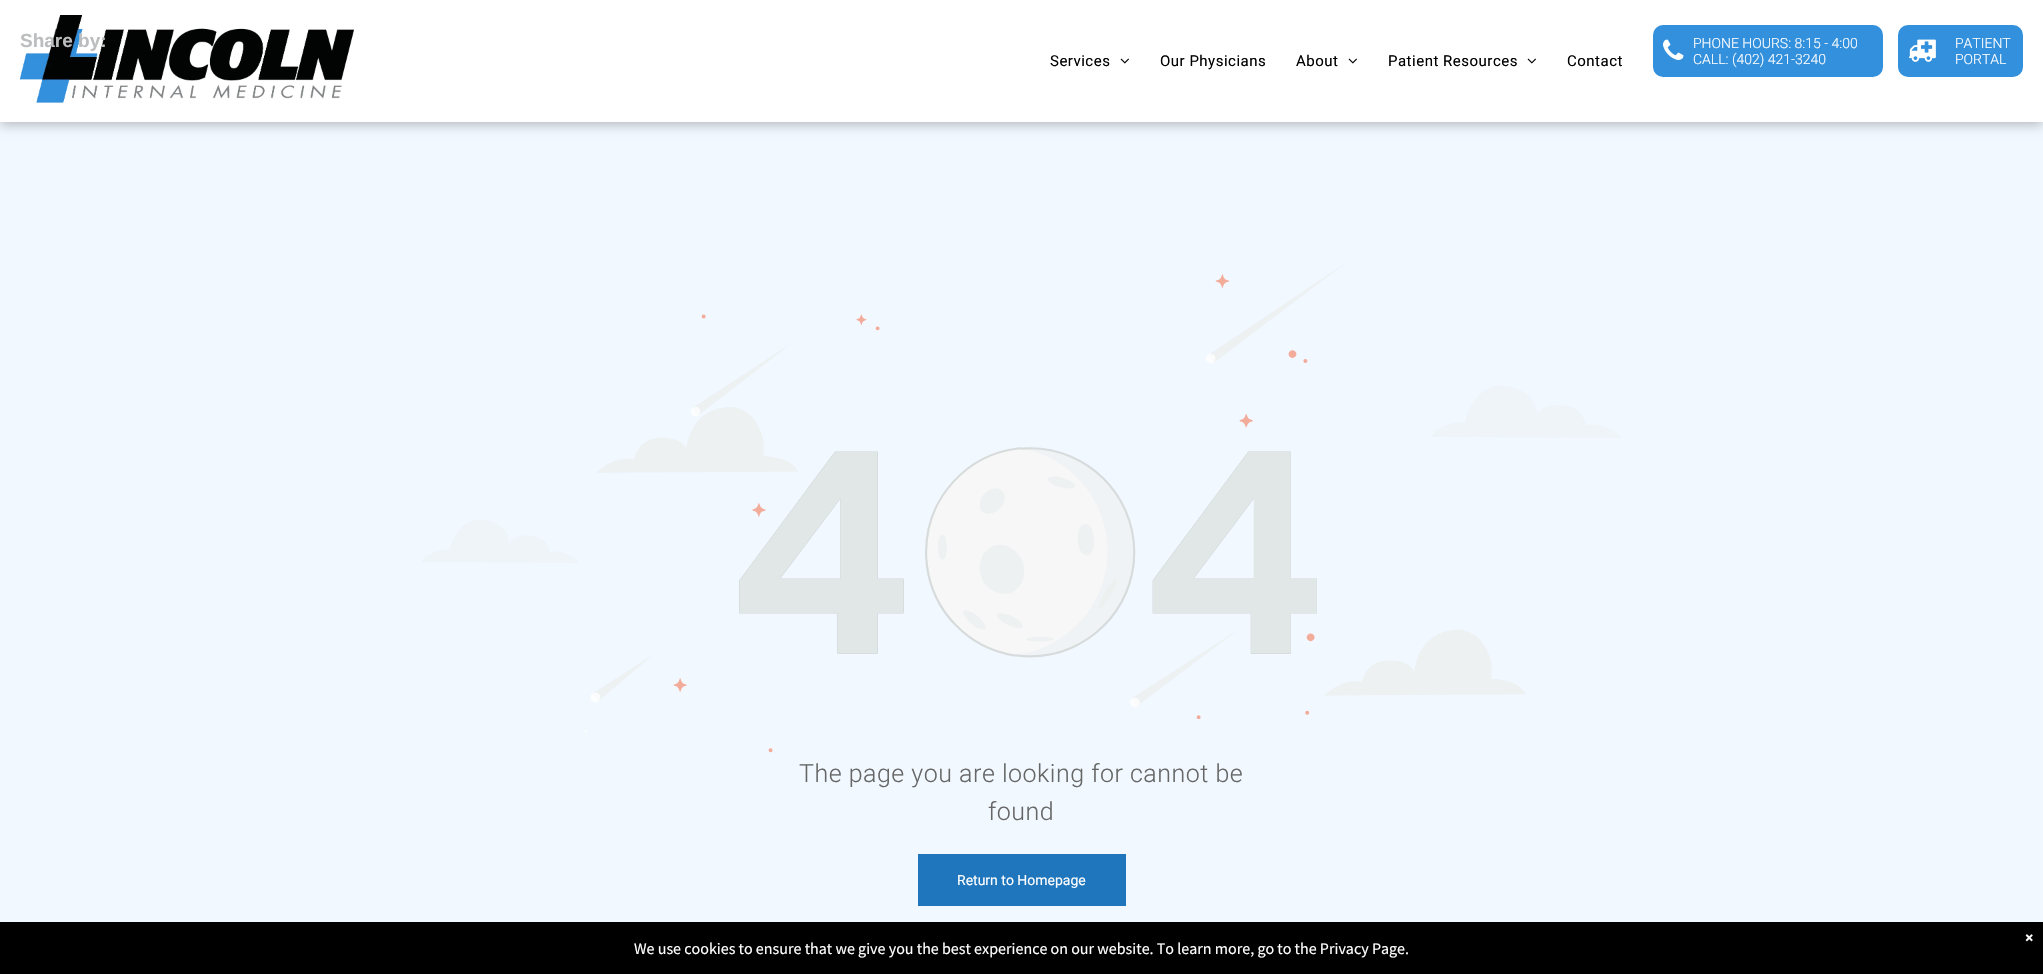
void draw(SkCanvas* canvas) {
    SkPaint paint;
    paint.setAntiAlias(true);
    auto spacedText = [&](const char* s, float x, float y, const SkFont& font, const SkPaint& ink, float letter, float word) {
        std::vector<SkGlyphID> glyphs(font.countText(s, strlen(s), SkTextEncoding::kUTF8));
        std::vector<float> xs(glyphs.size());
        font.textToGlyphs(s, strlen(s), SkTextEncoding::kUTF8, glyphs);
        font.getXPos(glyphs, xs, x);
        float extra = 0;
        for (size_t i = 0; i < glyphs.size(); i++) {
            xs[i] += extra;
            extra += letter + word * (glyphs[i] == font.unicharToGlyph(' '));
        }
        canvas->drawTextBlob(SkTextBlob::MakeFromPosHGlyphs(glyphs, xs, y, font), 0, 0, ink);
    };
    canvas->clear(0xFFF1F8FF);
    paint.setColor(0x40000000);
    paint.setMaskFilter(SkMaskFilter::MakeBlur(kNormal_SkBlurStyle, 5.5f));
    canvas->drawRect(SkRect::MakeXYWH(0, 3, 2043, 122), paint);
    paint.setMaskFilter(nullptr);
    paint.setColor(0xFFFFFFFF);
    canvas->drawRect(SkRect::MakeXYWH(0, 0, 2043, 122), paint);
    canvas->drawImageRect(SkImages::DeferredFromEncodedData(SkData::MakeFromFileName("img1.png")), SkRect::MakeXYWH(20, 15, 334, 88), SkSamplingOptions());
    SkFont font1(fontMgr->matchFamilyStyle("Liberation Sans", SkFontStyle::Bold()), 19);
    font1.setSubpixel(true);
    paint.setColor(0xFFBBBDBE);
    canvas->drawString("Share by:", 20, 47, font1, paint);
    SkFont font2(fontMgr->matchFamilyStyle("Roboto", SkFontStyle::Normal()), 15);
    font2.setSubpixel(true);
    paint.setColor(0xFF000000);
    spacedText("Services", 1050, 66, font2, paint, 0.5f, 0);
    canvas->drawImageRect(SkImages::DeferredFromEncodedData(SkData::MakeFromFileName("img2.png")), SkRect::MakeXYWH(1120, 58, 9, 6), SkSamplingOptions());
    spacedText("Our Physicians", 1160, 66, font2, paint, 0.5f, 0);
    spacedText("About", 1296, 66, font2, paint, 0.5f, 0);
    canvas->drawImageRect(SkImages::DeferredFromEncodedData(SkData::MakeFromFileName("img2.png")), SkRect::MakeXYWH(1348, 58, 9, 6), SkSamplingOptions());
    spacedText("Patient Resources", 1388, 66, font2, paint, 0.5f, 0);
    canvas->drawImageRect(SkImages::DeferredFromEncodedData(SkData::MakeFromFileName("img2.png")), SkRect::MakeXYWH(1527, 58, 9, 6), SkSamplingOptions());
    spacedText("Contact", 1567, 66, font2, paint, 0.5f, 0);
    paint.setColor(0xFF3390DD);
    canvas->drawRoundRect(SkRect::MakeXYWH(1653, 25, 230, 52), 10, 10, paint);
    canvas->drawImageRect(SkImages::DeferredFromEncodedData(SkData::MakeFromFileName("img3.png")), SkRect::MakeXYWH(1663, 39, 21, 21), SkSamplingOptions());
    SkFont font3(fontMgr->matchFamilyStyle("Roboto", SkFontStyle(300, SkFontStyle::kNormal_Width, SkFontStyle::kUpright_Slant)), 14);
    font3.setSubpixel(true);
    paint.setColor(0xFFFFFFFF);
    canvas->drawString("PHONE HOURS: 8:15 - 4:00", 1693, 48, font3, paint);
    canvas->drawString("CALL: (402) 421-3240", 1693, 64, font3, paint);
    paint.setColor(0xFF3390DD);
    canvas->drawRoundRect(SkRect::MakeXYWH(1898, 25, 125, 52), 10, 10, paint);
    canvas->drawImageRect(SkImages::DeferredFromEncodedData(SkData::MakeFromFileName("img4.png")), SkRect::MakeXYWH(1909, 39, 27, 23), SkSamplingOptions());
    paint.setColor(0xFFFFFFFF);
    canvas->drawString("PATIENT", 1955, 48, font3, paint);
    canvas->drawString("PORTAL", 1955, 64, font3, paint);
    canvas->drawImageRect(SkImages::DeferredFromEncodedData(SkData::MakeFromFileName("img5.png")), SkRect::MakeXYWH(422, 264, 1200, 489), SkSamplingOptions());
    SkFont font4(fontMgr->matchFamilyStyle("Roboto", SkFontStyle(300, SkFontStyle::kNormal_Width, SkFontStyle::kUpright_Slant)), 25);
    font4.setSubpixel(true);
    paint.setColor(0xFF666666);
    spacedText("The page you are looking for cannot be", 799, 782, font4, paint, 0.5f, 0);
    spacedText("found", 988, 820, font4, paint, 0.5f, 0);
    paint.setColor(0xFF2076BD);
    canvas->drawRect(SkRect::MakeXYWH(918, 854, 208, 52), paint);
    SkFont font5(fontMgr->matchFamilyStyle("Roboto", SkFontStyle::Normal()), 14);
    font5.setSubpixel(true);
    paint.setColor(0xFFFFFFFF);
    canvas->drawString("Return to Homepage", 957, 885, font5, paint);
    paint.setColor(0xFF000000);
    canvas->drawRect(SkRect::MakeXYWH(0, 922, 2043, 52), paint);
    SkFont font6(fontMgr->matchFamilyStyle("Source Sans Pro", SkFontStyle::Bold()), 16);
    font6.setSubpixel(true);
    paint.setColor(0xFFFFFFFF);
    canvas->drawString("×", 2025, 943, font6, paint);
    SkFont font7(fontMgr->matchFamilyStyle("Source Sans Pro", SkFontStyle::Normal()), 16);
    font7.setSubpixel(true);
    canvas->drawString("We use cookies to ensure that we give you the best experience on our website. To learn more, go to the Privacy Page.", 634, 954, font7, paint);
}
